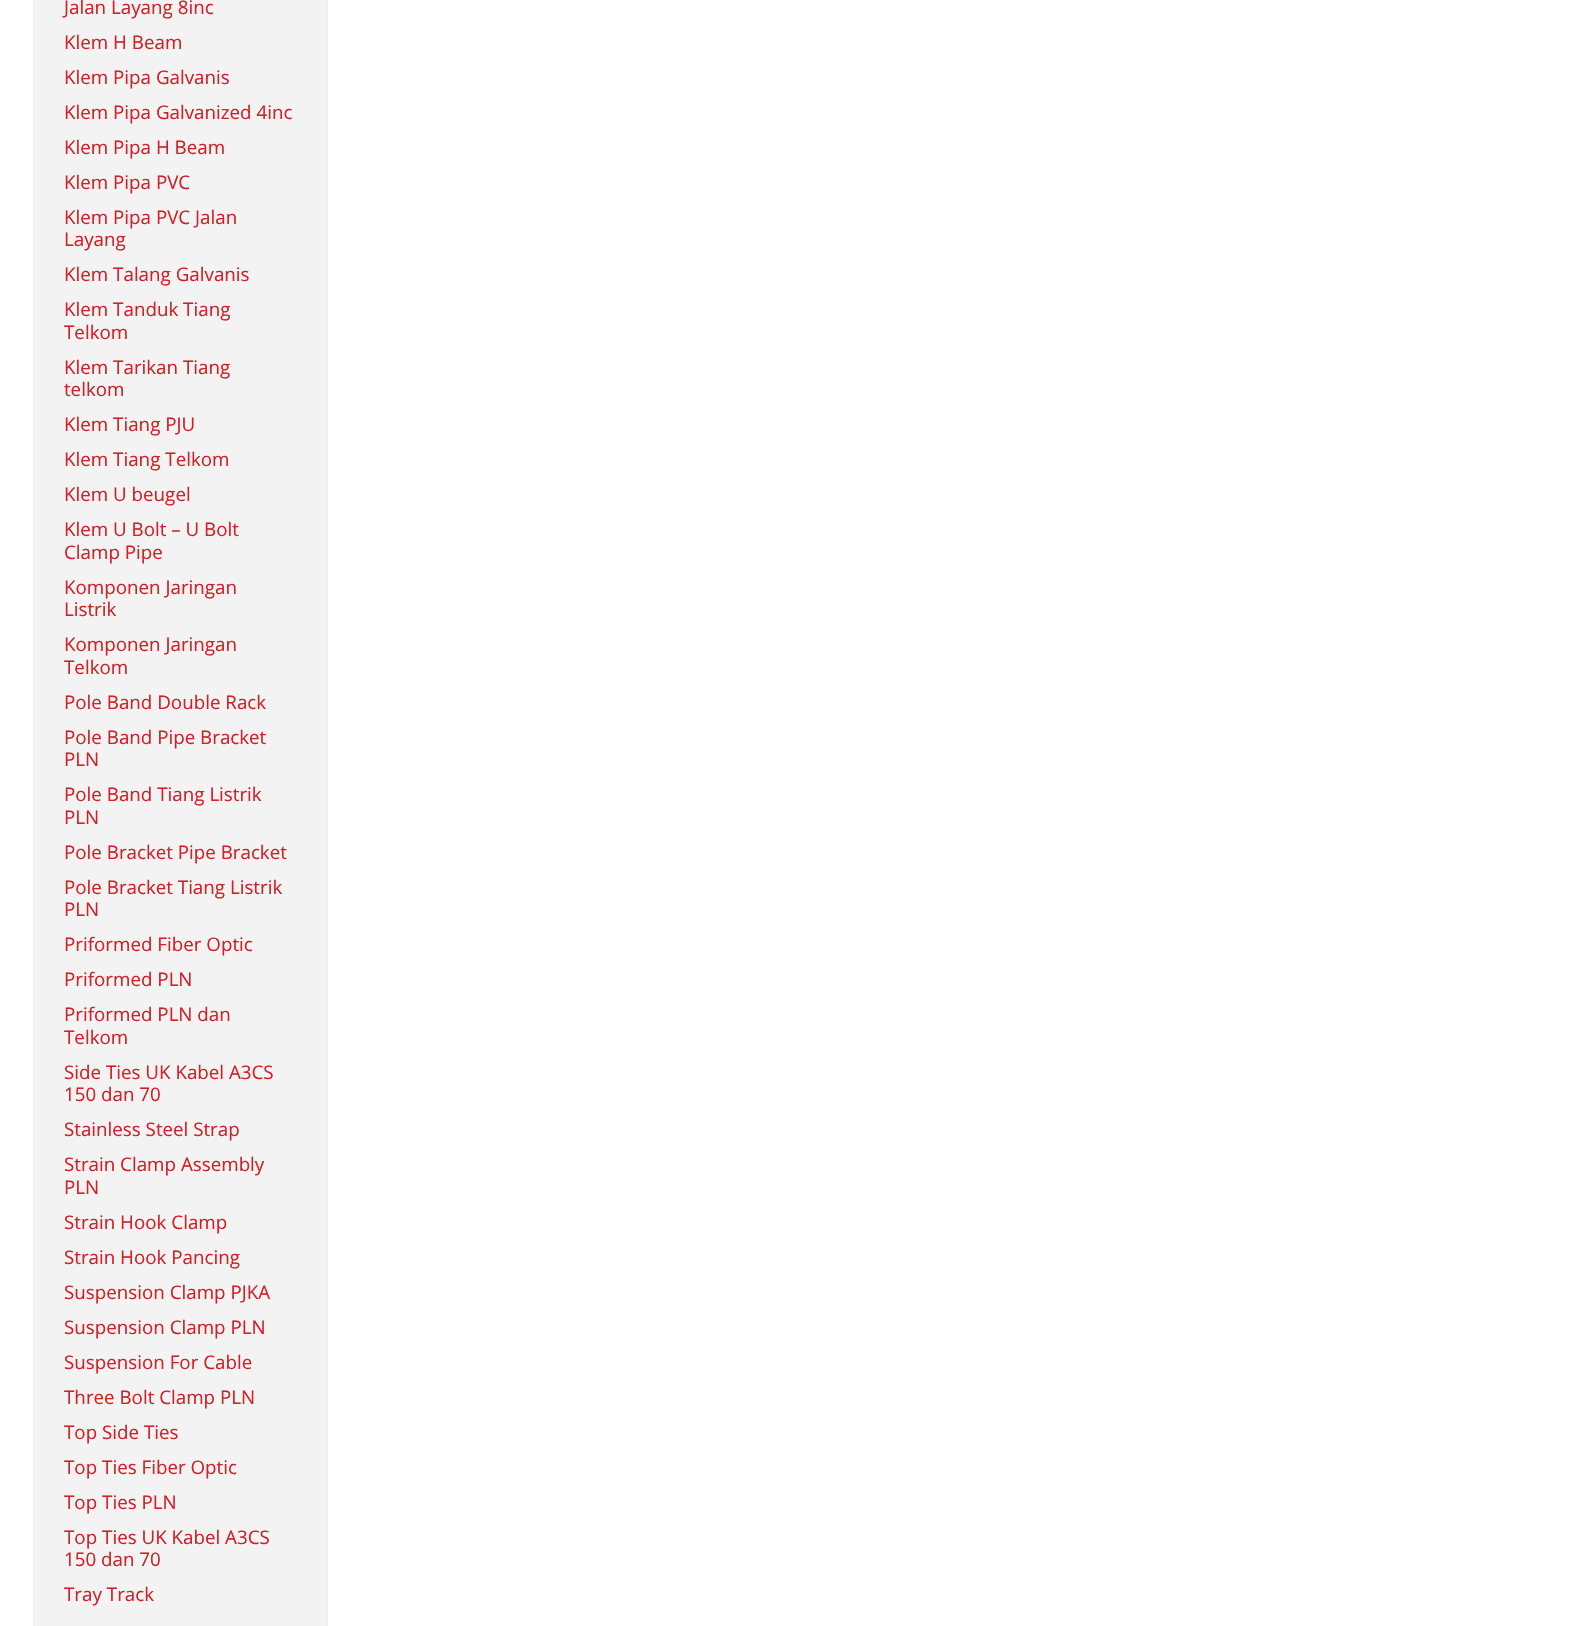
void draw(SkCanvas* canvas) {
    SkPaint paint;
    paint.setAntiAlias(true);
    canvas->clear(0xFFFFFFFF);
    paint.setColor(0xFFF3F3F3);
    canvas->drawRect(SkRect::MakeXYWH(33.5f, -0.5f, 294, 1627), paint);
    paint.setStyle(SkPaint::kStroke_Style);
    paint.setStrokeWidth(1);
    paint.setColor(0xFFEEEEEE);
    canvas->drawRect(SkRect::MakeXYWH(33.5f, -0.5f, 294, 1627), paint);
    SkFont font1(fontMgr->matchFamilyStyle("Open Sans", SkFontStyle::Normal()), 18.75f);
    font1.setSubpixel(true);
    paint.setStyle(SkPaint::kFill_Style);
    paint.setColor(0xFFD41F26);
    canvas->drawString("Jalan Layang 8inc", 64, 14, font1, paint);
    canvas->drawString("Klem H Beam", 64, 49, font1, paint);
    canvas->drawString("Klem Pipa Galvanis", 64, 84, font1, paint);
    canvas->drawString("Klem Pipa Galvanized 4inc", 64, 119, font1, paint);
    canvas->drawString("Klem Pipa H Beam", 64, 154, font1, paint);
    canvas->drawString("Klem Pipa PVC", 64, 189, font1, paint);
    canvas->drawString("Klem Pipa PVC Jalan", 64, 224, font1, paint);
    canvas->drawString("Layang", 64, 246, font1, paint);
    canvas->drawString("Klem Talang Galvanis", 64, 281, font1, paint);
    canvas->drawString("Klem Tanduk Tiang", 64, 316, font1, paint);
    canvas->drawString("Telkom", 64, 339, font1, paint);
    canvas->drawString("Klem Tarikan Tiang", 64, 374, font1, paint);
    canvas->drawString("telkom", 64, 396, font1, paint);
    canvas->drawString("Klem Tiang PJU", 64, 431, font1, paint);
    canvas->drawString("Klem Tiang Telkom", 64, 466, font1, paint);
    canvas->drawString("Klem U beugel", 64, 501, font1, paint);
    canvas->drawString("Klem U Bolt – U Bolt", 64, 536, font1, paint);
    canvas->drawString("Clamp Pipe", 64, 559, font1, paint);
    canvas->drawString("Komponen Jaringan", 64, 594, font1, paint);
    canvas->drawString("Listrik", 64, 616, font1, paint);
    canvas->drawString("Komponen Jaringan", 64, 651, font1, paint);
    canvas->drawString("Telkom", 64, 674, font1, paint);
    canvas->drawString("Pole Band Double Rack", 64, 709, font1, paint);
    canvas->drawString("Pole Band Pipe Bracket", 64, 744, font1, paint);
    canvas->drawString("PLN", 64, 766, font1, paint);
    canvas->drawString("Pole Band Tiang Listrik", 64, 801, font1, paint);
    canvas->drawString("PLN", 64, 824, font1, paint);
    canvas->drawString("Pole Bracket Pipe Bracket", 64, 859, font1, paint);
    canvas->drawString("Pole Bracket Tiang Listrik", 64, 894, font1, paint);
    canvas->drawString("PLN", 64, 916, font1, paint);
    canvas->drawString("Priformed Fiber Optic", 64, 951, font1, paint);
    canvas->drawString("Priformed PLN", 64, 986, font1, paint);
    canvas->drawString("Priformed PLN dan", 64, 1021, font1, paint);
    canvas->drawString("Telkom", 64, 1044, font1, paint);
    canvas->drawString("Side Ties UK Kabel A3CS", 64, 1079, font1, paint);
    canvas->drawString("150 dan 70", 64, 1101, font1, paint);
    canvas->drawString("Stainless Steel Strap", 64, 1136, font1, paint);
    canvas->drawString("Strain Clamp Assembly", 64, 1171, font1, paint);
    canvas->drawString("PLN", 64, 1194, font1, paint);
    canvas->drawString("Strain Hook Clamp", 64, 1229, font1, paint);
    canvas->drawString("Strain Hook Pancing", 64, 1264, font1, paint);
    canvas->drawString("Suspension Clamp PJKA", 64, 1299, font1, paint);
    canvas->drawString("Suspension Clamp PLN", 64, 1334, font1, paint);
    canvas->drawString("Suspension For Cable", 64, 1369, font1, paint);
    canvas->drawString("Three Bolt Clamp PLN", 64, 1404, font1, paint);
    canvas->drawString("Top Side Ties", 64, 1439, font1, paint);
    canvas->drawString("Top Ties Fiber Optic", 64, 1474, font1, paint);
    canvas->drawString("Top Ties PLN", 64, 1509, font1, paint);
    canvas->drawString("Top Ties UK Kabel A3CS", 64, 1544, font1, paint);
    canvas->drawString("150 dan 70", 64, 1566, font1, paint);
    canvas->drawString("Tray Track", 64, 1601, font1, paint);
}
